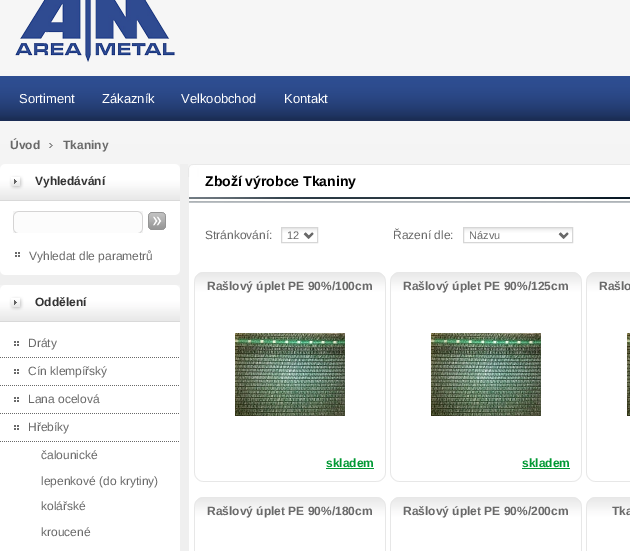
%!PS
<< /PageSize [630 551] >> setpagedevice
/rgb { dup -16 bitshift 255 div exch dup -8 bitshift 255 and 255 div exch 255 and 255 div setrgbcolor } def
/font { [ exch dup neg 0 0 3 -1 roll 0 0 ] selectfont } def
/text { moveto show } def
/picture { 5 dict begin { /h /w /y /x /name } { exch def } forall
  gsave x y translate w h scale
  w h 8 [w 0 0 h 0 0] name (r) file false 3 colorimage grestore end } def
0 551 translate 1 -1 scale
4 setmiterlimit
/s1 { /LiberationSans-Regular 13 font 16#FFFFFF rgb } def
/s2 { /LiberationSans-Bold 12 font 16#696969 rgb } def
/s3 { /LiberationSans-Bold 12 font 16#333333 rgb } def
/s4 { /LiberationSans-Regular 12 font 16#696969 rgb } def
/s5 { /LiberationSans-Regular 11 font 16#696969 rgb } def
/s6 { /LiberationSans-Bold 12 font 16#009933 rgb } def
/s7 { /LiberationSans-Bold 14 font 16#000000 rgb } def
16#EFEFEF rgb
0 0 630 551 rectfill
(pic1.raw) 0 0 630 164 picture
(pic2.raw) 15 0 160 62 picture
s1
(Sortiment) 19 103 text
(Zákazník) 102 103 text
(Velkoobchod) 181 103 text
(Kontakt) 284 103 text
s2
(Úvod) 10 149 text
(pic3.raw) 49 143 4 5 picture
(Tkaniny) 63 149 text
(pic4.raw) 0 164 180 37 picture
s3
(Vyhledávání) 35 185 text
16#FFFFFF rgb
0 201 180 69 rectfill
(pic5.raw) 13 211 130 22 picture
(pic6.raw) 148 212 18 18 picture
(pic7.raw) 15 252 5 5 picture
s4
(Vyhledat dle parametrů) 29 260 text
(pic8.raw) 0 270 180 5 picture
(pic4.raw) 0 285 180 37 picture
s3
(Oddělení) 35 306 text
16#FFFFFF rgb
0 322 180 229 rectfill
(pic9.raw) 0 357 179 1 picture
(pic7.raw) 14 341 5 5 picture
s4
(Dráty) 28 347 text
(pic9.raw) 0 385 179 1 picture
(pic7.raw) 14 369 5 5 picture
(Cín klempířský) 28 375 text
(pic9.raw) 0 413 179 1 picture
(pic7.raw) 14 397 5 5 picture
(Lana ocelová) 28 403 text
(pic9.raw) 0 441 179 1 picture
(pic7.raw) 14 425 5 5 picture
(Hřebíky) 28 431 text
(čalounické) 41 459 text
(lepenkové \(do krytiny\)) 41 485 text
(kolářské) 41 510 text
(kroucené) 41 536 text
16#FFFFFF rgb
189 177 441 374 rectfill
(pic10.raw) 188 164 442 13 picture
s4
(Stránkování:) 205 239 text
(pic11.raw) 282 228 35 11 picture
16#D6D6D6 rgb
281.5 227.5 36 15 rectstroke
16#696969 rgb
2 setlinewidth
304.5 233.5 moveto 308.5 237.5 lineto 312.5 233.5 lineto stroke
s5
(12) 287 239 text
s4
(Řazení dle:) 393 239 text
(pic12.raw) 464 228 108 11 picture
16#D6D6D6 rgb
1 setlinewidth
463.5 227.5 109 15 rectstroke
16#696969 rgb
2 setlinewidth
559.5 233.5 moveto 563.5 237.5 lineto 567.5 233.5 lineto stroke
s5
(Názvu) 469 239 text
(pic13.raw) 194 272 192 210 picture
s2
(Rašlový úplet PE 90%/100cm) 207 290 text
(pic14.raw) 235 333 110 83 picture
s6
(skladem) 326 467 text
326 468 48 1 rectfill
(pic13.raw) 390 272 192 210 picture
s2
(Rašlový úplet PE 90%/125cm) 403 290 text
(pic14.raw) 431 333 110 83 picture
s6
(skladem) 522 467 text
522 468 48 1 rectfill
(pic15.raw) 586 272 44 210 picture
s2
(Rašlo) 599 290 text
(pic16.raw) 627 333 3 83 picture
(pic17.raw) 194 497 192 54 picture
(Rašlový úplet PE 90%/180cm) 207 515 text
(pic17.raw) 390 497 192 54 picture
(Rašlový úplet PE 90%/200cm) 403 515 text
(pic18.raw) 586 497 44 54 picture
(Tka) 612 515 text
(pic19.raw) 189 197 441 6 picture
s7
(Zboží výrobce Tkaniny) 205 186 text
showpage
